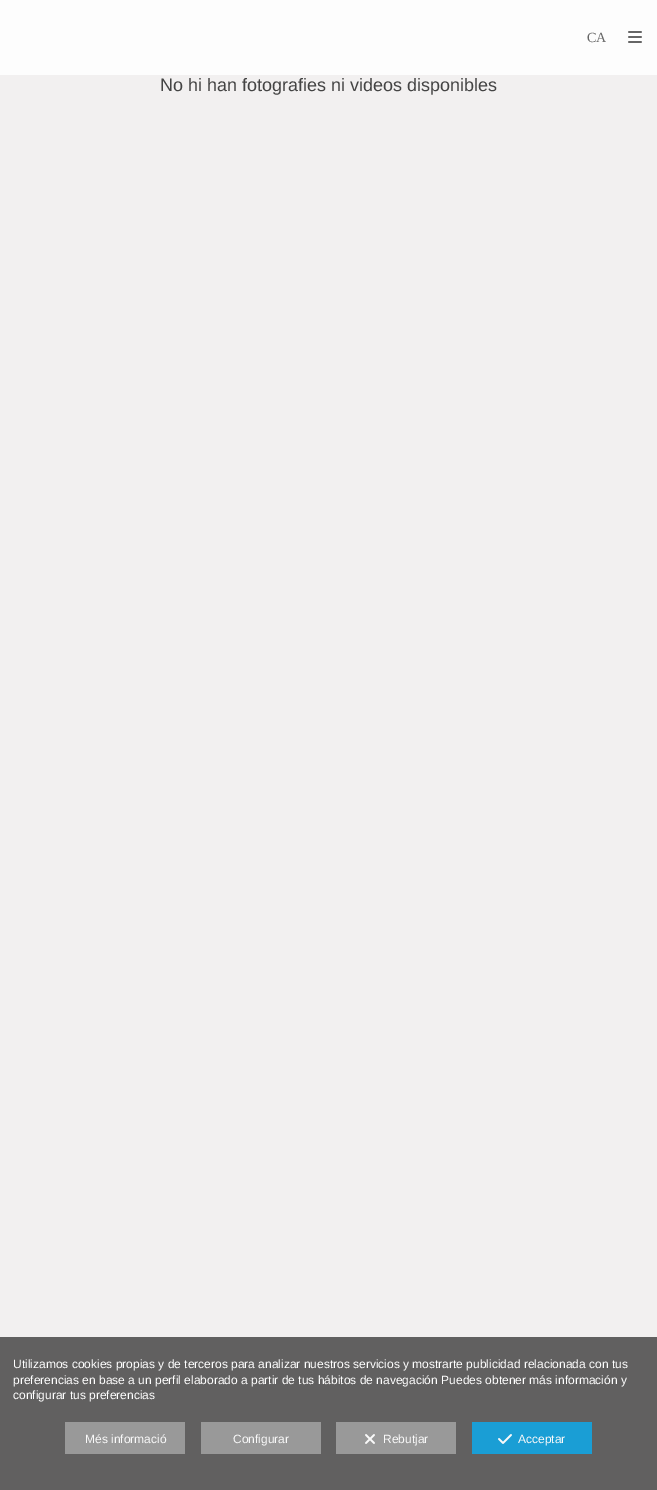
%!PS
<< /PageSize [657 1490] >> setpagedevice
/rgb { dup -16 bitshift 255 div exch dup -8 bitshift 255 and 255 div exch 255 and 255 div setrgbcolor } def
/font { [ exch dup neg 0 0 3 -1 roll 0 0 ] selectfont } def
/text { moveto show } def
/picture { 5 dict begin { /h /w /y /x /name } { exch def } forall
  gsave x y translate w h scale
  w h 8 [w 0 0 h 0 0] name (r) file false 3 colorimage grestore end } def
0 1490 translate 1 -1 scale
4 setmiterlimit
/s1 { /LiberationSerif-Regular 14 font 16#666666 rgb } def
/s2 { /LiberationSans-Regular 18 font 16#444444 rgb } def
/s3 { /LiberationSans-Regular 12 font 16#FFFFFF rgb } def
/s4 { /LiberationSans-Regular 12 font 16#F9F9F9 rgb } def
16#F2F0F0 rgb
0 0 657 1490 rectfill
16#FDFDFD rgb
0 0 657 75 rectfill
s1
(CA) 587 42 text
(pic1.raw) 628 31 14 12 picture
s2
(No hi han fotografies ni videos disponibles) 160 91 text
16#616060 rgb
0 1337 657 153 rectfill
s3
(Utilizamos cookies propias y de terceros para analizar nuestros servicios y mostrarte publicidad relacionada con tus) 13 1368 text
(preferencias en base a un perfil elaborado a partir de tus hábitos de navegación Puedes obtener más información y) 13 1384 text
(configurar tus preferencias) 13 1399 text
16#999999 rgb
65 1422 120 32 rectfill
s4
(Més informació) 85 1443 text
16#999999 rgb
201 1422 120 32 rectfill
s4
(Configurar) 233 1443 text
16#999999 rgb
336 1422 120 32 rectfill
(pic2.raw) 365 1434 10 10 picture
s4
(Rebutjar) 383 1443 text
16#1A9ED5 rgb
472 1422 120 32 rectfill
(pic3.raw) 498 1434 14 10 picture
s4
(Acceptar) 518 1443 text
showpage
